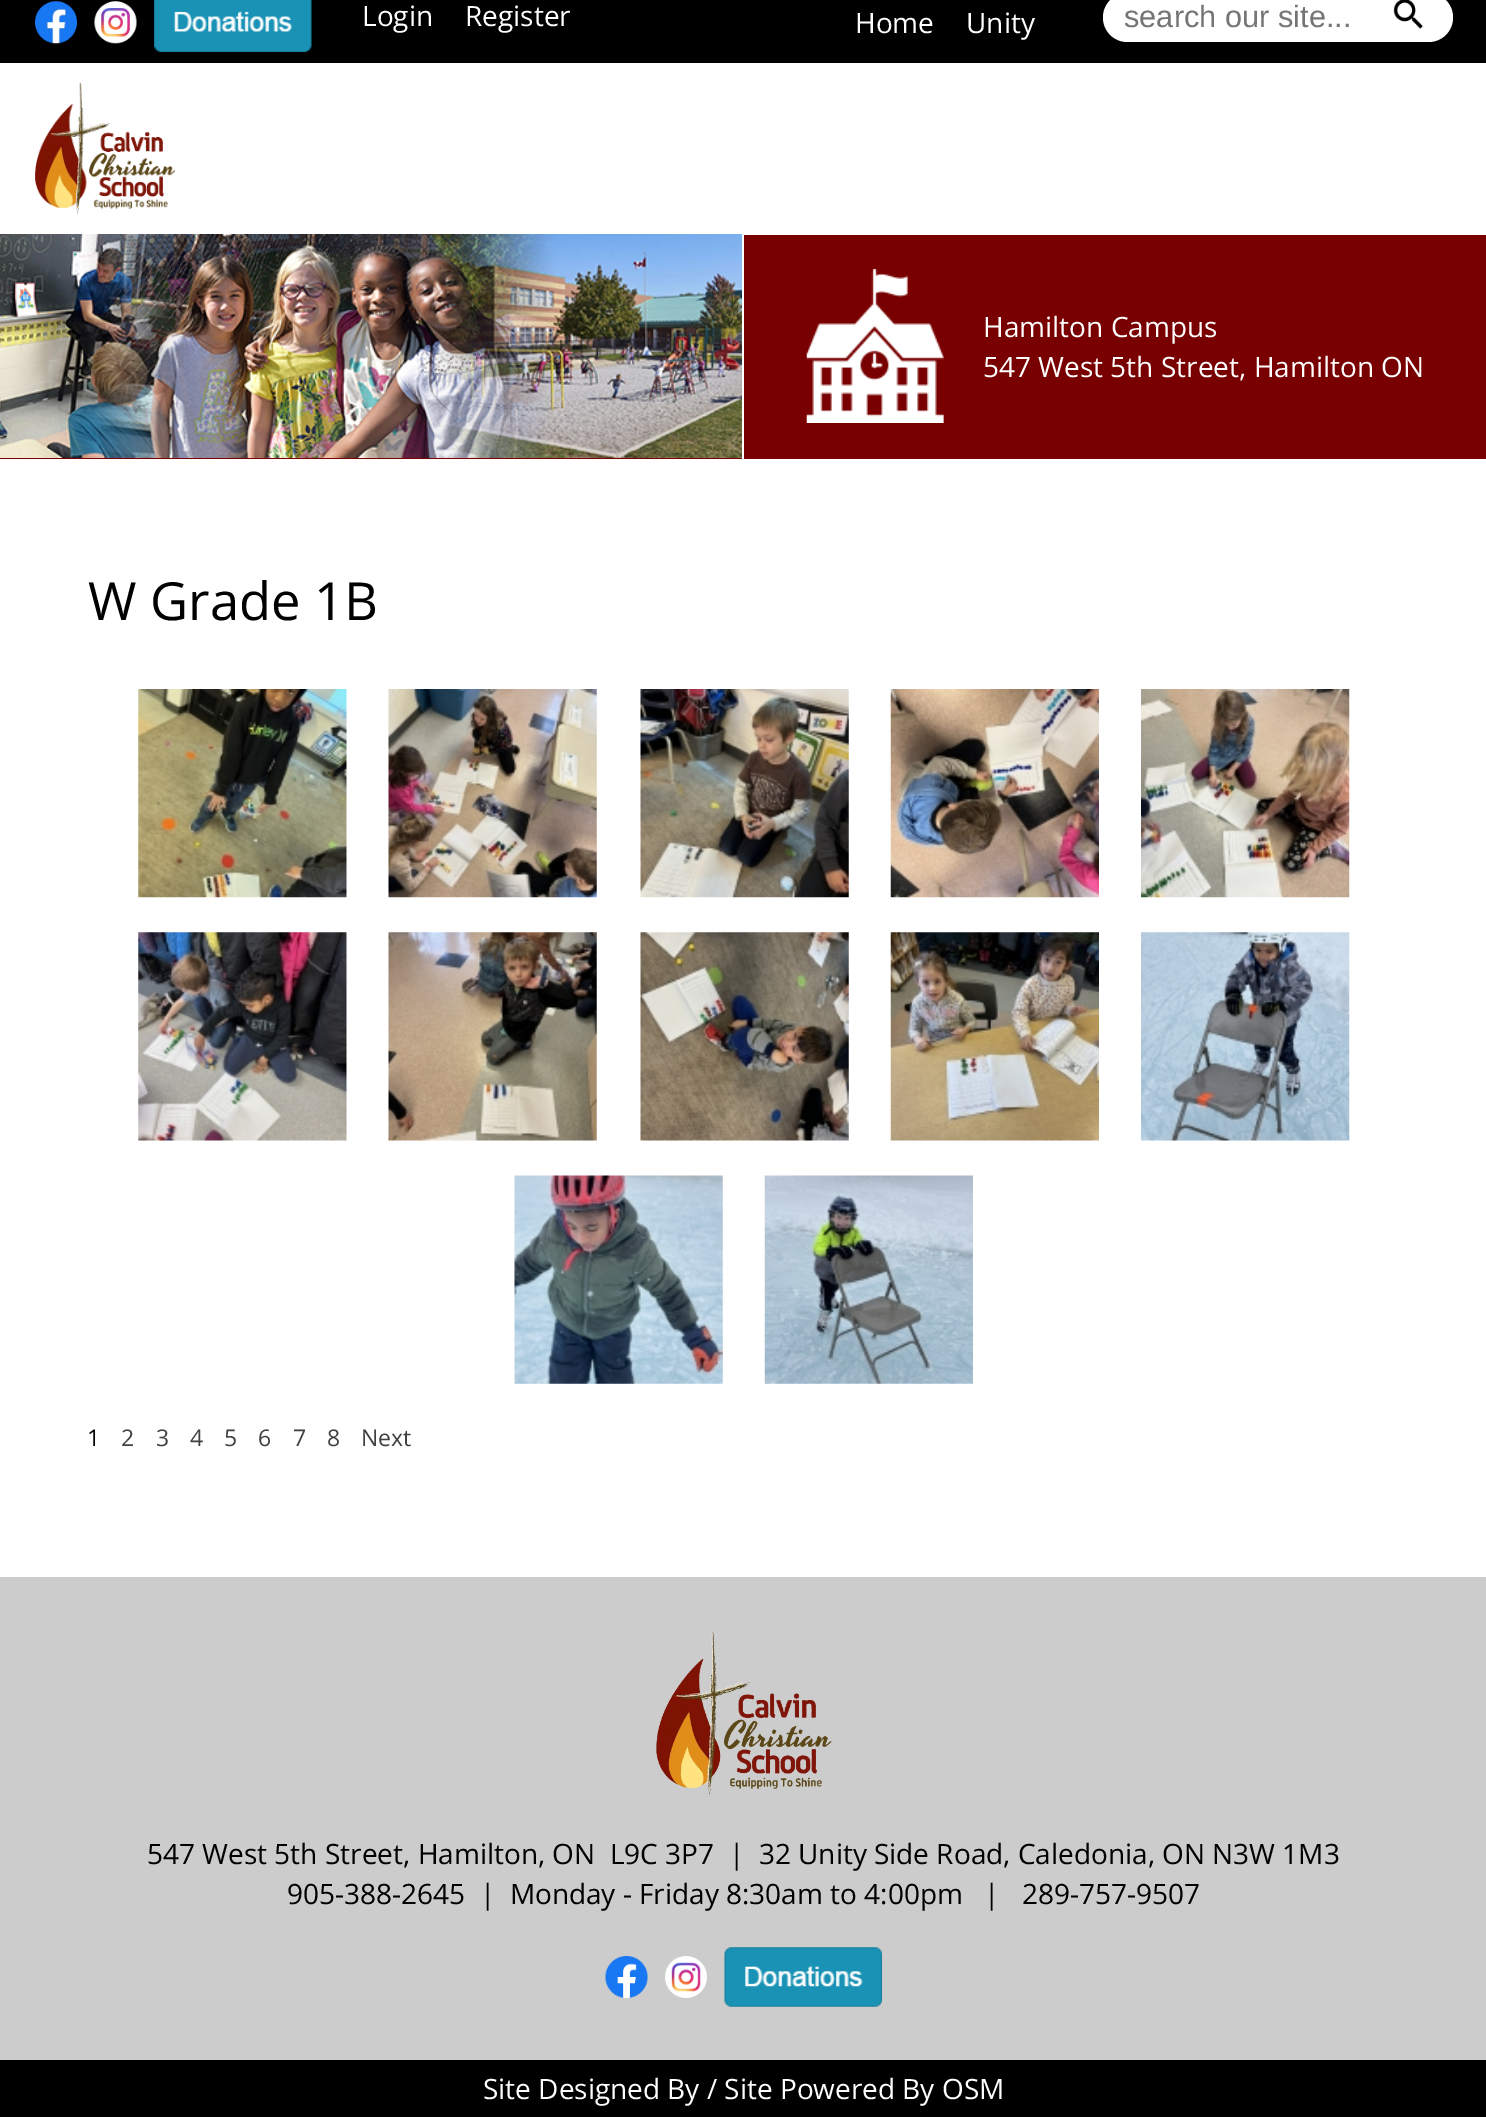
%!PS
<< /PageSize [1486 2117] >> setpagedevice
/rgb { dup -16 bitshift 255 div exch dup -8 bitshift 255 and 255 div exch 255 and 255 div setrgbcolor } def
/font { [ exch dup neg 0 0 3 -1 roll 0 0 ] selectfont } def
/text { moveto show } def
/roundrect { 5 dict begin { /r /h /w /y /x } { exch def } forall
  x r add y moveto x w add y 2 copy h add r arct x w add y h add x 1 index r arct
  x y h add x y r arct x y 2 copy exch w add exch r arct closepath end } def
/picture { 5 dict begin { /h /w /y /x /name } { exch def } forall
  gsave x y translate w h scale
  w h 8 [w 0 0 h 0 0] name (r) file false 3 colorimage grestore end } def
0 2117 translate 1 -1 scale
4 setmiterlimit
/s1 { /OpenSans-Regular 28 font 16#FFFFFF rgb } def
/s2 { /LiberationSans-Regular 30.75 font 16#757575 rgb } def
/s3 { /OpenSans-Regular 52.5 font 16#000000 rgb } def
/s4 { /OpenSans-Regular 23 font 16#000000 rgb } def
/s5 { /OpenSans-Regular 23 font 16#414040 rgb } def
/s6 { /OpenSans-Regular 28 font 16#000000 rgb } def
16#FFFFFF rgb
0 0 1486 2117 rectfill
16#000000 rgb
0 0 1486 63 rectfill
(pic1.raw) 35 1 42 43 picture
(pic2.raw) 94 1 43 43 picture
(pic3.raw) 154 0 158 52 picture
s1
(Login) 362 26 text
(Register) 465 26 text
(Home) 855 33 text
(Unity) 966 33 text
1103 -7 350 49 24.5 roundrect fill
s2
(search our site...) 1124 27 text
(pic4.raw) 1393 0 30 29 picture
(pic5.raw) 35 82 140 134 picture
16#790000 rgb
0 235 1486 224 rectfill
16#FFFFFF rgb
742 235 2 224 rectfill
(pic6.raw) 0 234 742 224 picture
(pic7.raw) 806 269 138 154 picture
s1
(Hamilton Campus) 983 337 text
(547 West 5th Street, Hamilton ON) 983 377 text
s3
(W Grade 1B) 88 620 text
(pic8.raw) 138 689 209 209 picture
(pic9.raw) 388 689 209 209 picture
(pic10.raw) 640 689 209 209 picture
(pic11.raw) 890 689 209 209 picture
(pic12.raw) 1141 689 209 209 picture
(pic13.raw) 138 932 209 209 picture
(pic14.raw) 388 932 209 209 picture
(pic15.raw) 640 932 209 209 picture
(pic16.raw) 890 932 209 209 picture
(pic17.raw) 1141 932 209 209 picture
(pic18.raw) 514 1175 209 209 picture
(pic19.raw) 764 1175 209 209 picture
s4
(1) 87 1446 text
s5
(2) 121 1446 text
(3) 156 1446 text
(4) 190 1446 text
(5) 224 1446 text
(6) 258 1446 text
(7) 293 1446 text
(8) 327 1446 text
(Next) 361 1446 text
16#CCCCCC rgb
0 1577 1486 483 rectfill
(pic20.raw) 656 1632 176 164 picture
s6
(547 West 5th Street, Hamilton, ON  L9C 3P7  |  32 Unity Side Road, Caledonia, ON N3W 1M3) 147 1864 text
(905-388-2645  |  Monday - Friday 8:30am to 4:00pm   |   289-757-9507) 287 1904 text
(pic21.raw) 605 1956 43 42 picture
(pic22.raw) 665 1956 42 42 picture
(pic23.raw) 724 1947 158 60 picture
0 2060 1486 57 rectfill
s1
(Site Designed By / Site Powered By OSM) 483 2099 text
showpage
